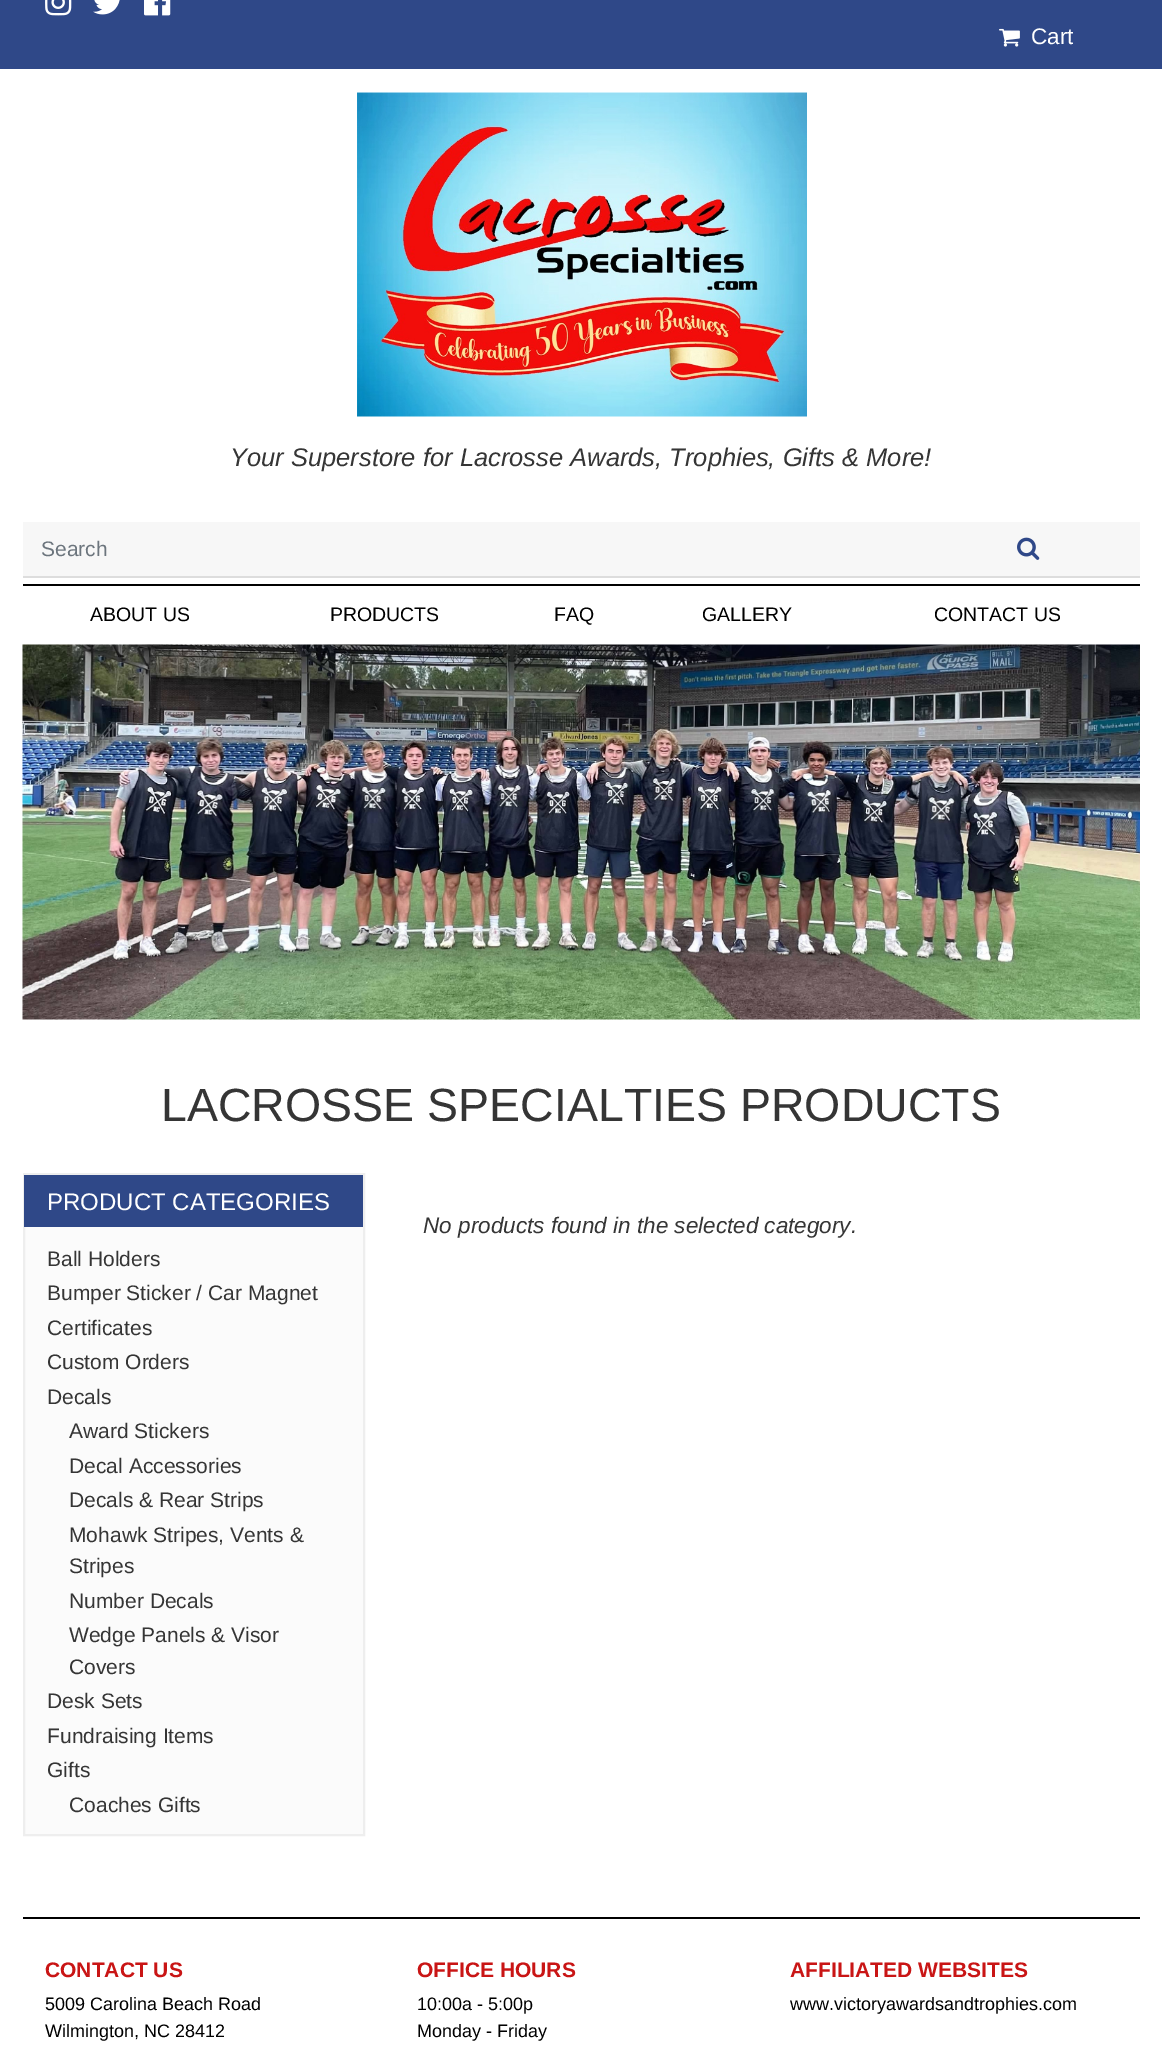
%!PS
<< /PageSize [1162 2051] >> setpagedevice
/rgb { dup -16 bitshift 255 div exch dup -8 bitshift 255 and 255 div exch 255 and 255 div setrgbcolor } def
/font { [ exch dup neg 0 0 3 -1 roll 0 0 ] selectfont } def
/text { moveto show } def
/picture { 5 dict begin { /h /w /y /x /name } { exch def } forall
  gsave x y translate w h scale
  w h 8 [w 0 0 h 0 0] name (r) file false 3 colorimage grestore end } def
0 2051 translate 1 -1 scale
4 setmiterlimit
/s1 { /LiberationSans-Regular 22.5 font 16#FFFFFF rgb } def
/s2 { /LiberationSans-Italic 25.5 font 16#353535 rgb } def
/s3 { /LiberationSans-Regular 21 font 16#6C757D rgb } def
/s4 { /LiberationSans-Regular 19.5 font 16#000000 rgb } def
/s5 { /LiberationSans-Regular 46.5 font 16#353535 rgb } def
/s6 { /LiberationSans-Regular 24 font 16#FFFFFF rgb } def
/s7 { /LiberationSans-Regular 21 font 16#353535 rgb } def
/s8 { /LiberationSans-Italic 22.5 font 16#353535 rgb } def
/s9 { /LiberationSans-Bold 21 font 16#C91515 rgb } def
/s10 { /LiberationSans-Regular 18 font 16#000000 rgb } def
16#FFFFFF rgb
0 0 1162 2051 rectfill
16#2F4888 rgb
0 0 1162 69 rectfill
(pic1.raw) 45 0 27 16 picture
(pic2.raw) 93 0 27 15 picture
(pic3.raw) 144 0 27 16 picture
(pic4.raw) 999 28 21 19 picture
s1
(Cart) 1031 44 text
(pic5.raw) 357 92 450 325 picture
s2
(Your Superstore for Lacrosse Awards, Trophies, Gifts & More!) 230 466 text
16#F7F7F7 rgb
23 522 1117 54 rectfill
16#DDDDDD rgb
23 576 1117 2 rectfill
s3
(Search) 41 556 text
(pic6.raw) 1017 537 23 23 picture
16#000000 rgb
23 584 1117 2 rectfill
s4
(ABOUT US) 90 621 text
(PRODUCTS) 330 621 text
(FAQ) 554 621 text
(GALLERY) 702 621 text
(CONTACT US) 934 621 text
(pic7.raw) 22 644 1118 376 picture
s5
(LACROSSE SPECIALTIES PRODUCTS) 161 1121 text
16#FBFBFB rgb
25 1227 338 607 rectfill
16#EEEEEE rgb
2 setlinewidth
24 1174 340 661 rectstroke
16#2F4888 rgb
24 1175 339 52 rectfill
s6
(PRODUCT CATEGORIES) 47 1210 text
s7
(Ball Holders) 47 1266 text
(Bumper Sticker / Car Magnet) 47 1300 text
(Certificates) 47 1335 text
(Custom Orders) 47 1369 text
(Decals) 47 1404 text
(Award Stickers) 69 1438 text
(Decal Accessories) 69 1473 text
(Decals & Rear Strips) 69 1507 text
(Mohawk Stripes, Vents &) 69 1542 text
(Stripes) 69 1573 text
(Number Decals) 69 1608 text
(Wedge Panels & Visor) 69 1642 text
(Covers) 69 1674 text
(Desk Sets) 47 1708 text
(Fundraising Items) 47 1743 text
(Gifts) 47 1777 text
(Coaches Gifts) 69 1812 text
s8
(No products found in the selected category.) 423 1233 text
16#000000 rgb
23 1917 1117 2 rectfill
s9
(CONTACT US) 45 1977 text
s10
(5009 Carolina Beach Road) 45 2010 text
(Wilmington, NC 28412) 45 2037 text
s9
(OFFICE HOURS) 417 1977 text
s10
(10:00a - 5:00p) 417 2010 text
(Monday - Friday) 417 2037 text
s9
(AFFILIATED WEBSITES) 790 1977 text
s10
(www.victoryawardsandtrophies.com) 790 2010 text
showpage
